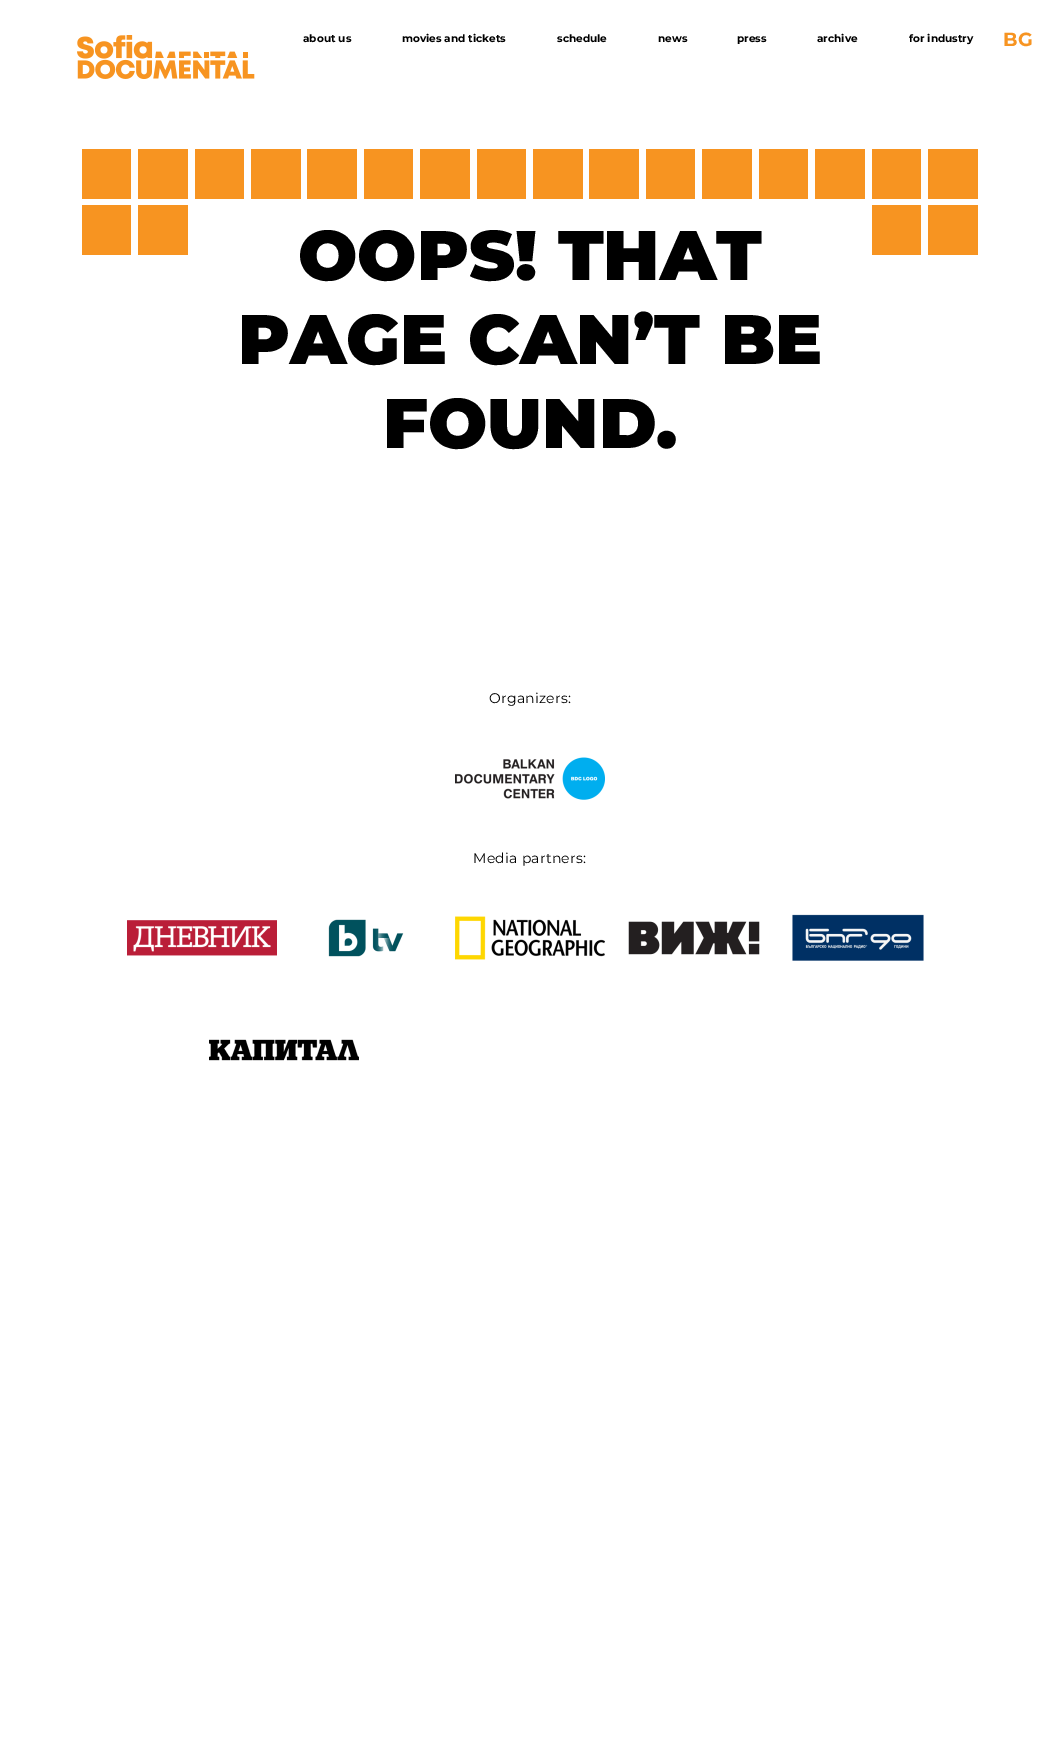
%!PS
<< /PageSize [1060 1761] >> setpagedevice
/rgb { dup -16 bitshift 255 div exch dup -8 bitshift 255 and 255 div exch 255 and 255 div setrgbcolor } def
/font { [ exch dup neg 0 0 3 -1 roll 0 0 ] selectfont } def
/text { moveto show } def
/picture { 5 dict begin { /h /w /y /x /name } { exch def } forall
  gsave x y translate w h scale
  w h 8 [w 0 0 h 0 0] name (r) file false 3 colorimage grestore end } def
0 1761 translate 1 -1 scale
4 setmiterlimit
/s1 { /Montserrat-Bold 10.5 font 16#000000 rgb } def
/s2 { /Montserrat-Bold 19 font 16#F79421 rgb } def
/s3 { /Montserrat-Black 70 font 16#000000 rgb } def
16#FFFFFF rgb
0 0 1060 1761 rectfill
(pic1.raw) 77 35 178 44 picture
s1
(about us) 303 42 text
(movies and tickets) 402 42 text
(schedule) 557 42 text
(news) 658 42 text
(press) 737 42 text
(archive) 817 42 text
(for industry) 909 42 text
s2
(BG) 1003 46 text
(pic2.raw) 82 149 896 106 picture
s3
(OOPS! THAT) 298 280 text
(PAGE CAN’T BE) 238 364 text
(FOUND.) 383 448 text
/Montserrat-Regular 14 font
489 703 moveto 0.25 0 (Organizers:) ashow
(pic3.raw) 455 757 150 43 picture
473 863 moveto 0.25 0 (Media partners:) ashow
(pic4.raw) 127 920 150 36 picture
(pic5.raw) 328 919 76 38 picture
(pic6.raw) 455 916 150 44 picture
(pic7.raw) 628 921 132 34 picture
(pic8.raw) 792 914 132 47 picture
(pic9.raw) 209 1039 150 22 picture
showpage
